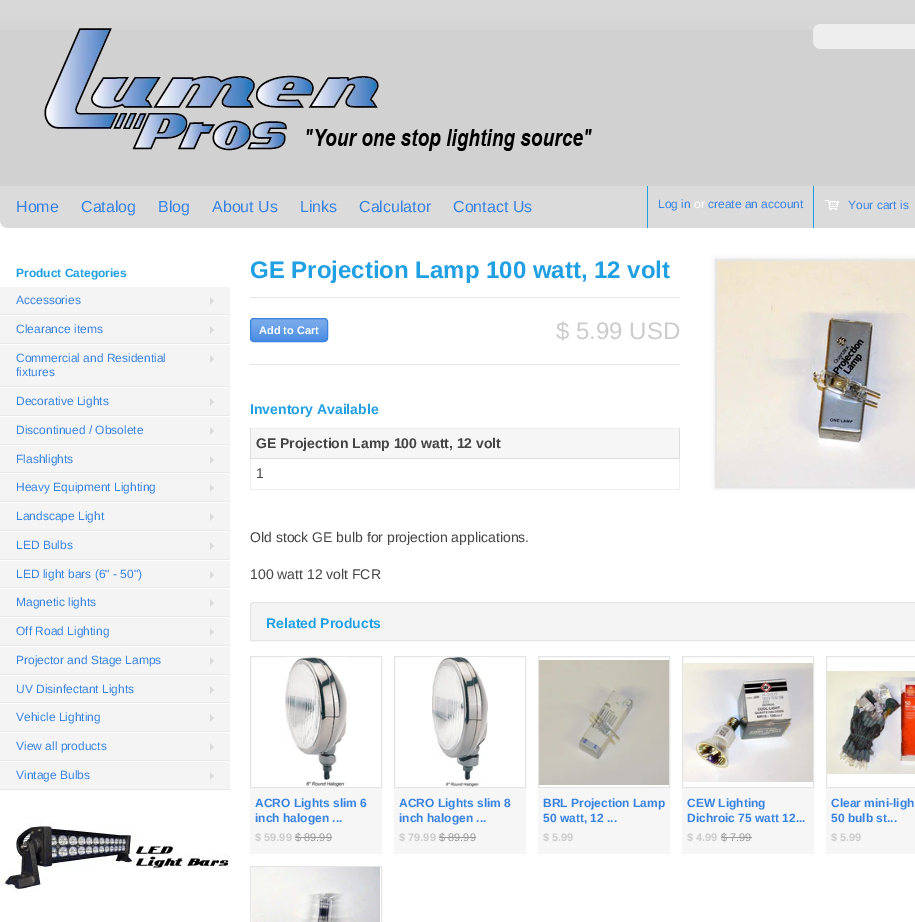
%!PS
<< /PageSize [915 922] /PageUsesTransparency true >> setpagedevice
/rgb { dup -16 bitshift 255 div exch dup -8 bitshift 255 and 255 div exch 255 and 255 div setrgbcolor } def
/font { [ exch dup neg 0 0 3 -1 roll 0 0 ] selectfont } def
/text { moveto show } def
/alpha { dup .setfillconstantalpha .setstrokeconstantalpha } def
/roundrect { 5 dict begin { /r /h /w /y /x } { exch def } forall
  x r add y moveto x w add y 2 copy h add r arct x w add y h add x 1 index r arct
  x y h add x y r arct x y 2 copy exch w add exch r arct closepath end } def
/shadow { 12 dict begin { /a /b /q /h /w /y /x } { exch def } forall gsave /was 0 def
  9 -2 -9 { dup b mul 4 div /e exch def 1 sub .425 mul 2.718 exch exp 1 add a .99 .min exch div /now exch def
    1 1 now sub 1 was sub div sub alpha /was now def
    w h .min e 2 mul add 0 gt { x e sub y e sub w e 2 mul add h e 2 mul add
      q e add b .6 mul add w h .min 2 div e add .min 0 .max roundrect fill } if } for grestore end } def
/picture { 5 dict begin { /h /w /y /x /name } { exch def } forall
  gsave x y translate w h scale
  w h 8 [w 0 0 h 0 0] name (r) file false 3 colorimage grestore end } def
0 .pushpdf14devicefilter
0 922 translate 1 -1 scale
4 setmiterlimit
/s1 { /LiberationSans-Regular 16 font 16#3A82E0 rgb } def
/s2 { /LiberationSans-Regular 12 font 16#3A82E0 rgb } def
/s3 { /LiberationSans-Regular 12 font 16#FFFFFF rgb } def
/s4 { /LiberationSans-Bold 12 font 16#209FE3 rgb } def
/s5 { /LiberationSans-Bold 24 font 16#209FE3 rgb } def
/s6 { /LiberationSans-Bold 11 font 16#FFFFFF rgb } def
/s7 { /LiberationSans-Regular 24 font 16#CCCCCC rgb } def
/s8 { /LiberationSans-Bold 14 font 16#209FE3 rgb } def
/s9 { /LiberationSans-Bold 14 font 16#444444 rgb } def
/s10 { /LiberationSans-Regular 14 font 16#444444 rgb } def
/s11 { /LiberationSans-Bold 12 font 16#3A82E0 rgb } def
/s12 { /LiberationSans-Bold 11 font 16#CCCCCC rgb } def
/s13 { /LiberationSans-Regular 11 font 16#999999 rgb } def
16#D1D1D1 rgb
0 0 915 922 rectfill
(pic1.raw) 0 0 915 30 picture
(pic2.raw) 44 28 548 123 picture
16#EEEEEE rgb
821 24 moveto 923 24 lineto 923 49 lineto 821 49 lineto 816.5 49 813 45.5 813 41 curveto 813 32 lineto 813 27.5 816.5 24 821 24 curveto closepath fill
16#FFFFFF rgb
0 220 915 702 rectfill
16#DBDBDB rgb
0 186 moveto 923 186 lineto 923 220 lineto 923 224.5 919.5 228 915 228 curveto 8 228 lineto 3.5 228 0 224.5 0 220 curveto closepath fill
s1
(Home) 16 212 text
(Catalog) 81 212 text
(Blog) 158 212 text
(About Us) 212 212 text
(Links) 300 212 text
(Calculator) 359 212 text
(Contact Us) 453 212 text
16#209FE3 rgb
647 186 1 42 rectfill
s2
(Log in) 658 208 text
s3
(or) 694 208 text
s2
(create an account) 708 208 text
16#209FE3 rgb
813 186 1 42 rectfill
(pic3.raw) 825 200 14 10 picture
s2
(Your cart is) 848 209 text
s4
(Product Categories) 16 277 text
16#F4F4F4 rgb
0 287 230 27 rectfill
16#E8E8E8 rgb
0 314 230 1 rectfill
s2
(Accessories) 16 304 text
16#DBDBDB rgb
210 305 moveto 210 297 lineto 214 301 lineto closepath fill
16#F4F4F4 rgb
0 316 230 27 rectfill
16#E8E8E8 rgb
0 343 230 1 rectfill
s2
(Clearance items) 16 333 text
16#DBDBDB rgb
210 334 moveto 210 326 lineto 214 330 lineto closepath fill
16#F4F4F4 rgb
0 345 230 41 rectfill
16#E8E8E8 rgb
0 386 230 1 rectfill
s2
(Commercial and Residential) 16 362 text
16#DBDBDB rgb
210 363 moveto 210 355 lineto 214 359 lineto closepath fill
s2
(fixtures) 16 376 text
16#F4F4F4 rgb
0 388 230 27 rectfill
16#E8E8E8 rgb
0 415 230 1 rectfill
s2
(Decorative Lights) 16 405 text
16#DBDBDB rgb
210 406 moveto 210 398 lineto 214 402 lineto closepath fill
16#F4F4F4 rgb
0 417 230 27 rectfill
16#E8E8E8 rgb
0 444 230 1 rectfill
s2
(Discontinued / Obsolete) 16 434 text
16#DBDBDB rgb
210 435 moveto 210 427 lineto 214 431 lineto closepath fill
16#F4F4F4 rgb
0 446 230 26 rectfill
16#E8E8E8 rgb
0 472 230 1 rectfill
s2
(Flashlights) 16 463 text
16#DBDBDB rgb
210 464 moveto 210 456 lineto 214 460 lineto closepath fill
16#F4F4F4 rgb
0 474 230 27 rectfill
16#E8E8E8 rgb
0 501 230 1 rectfill
s2
(Heavy Equipment Lighting) 16 491 text
16#DBDBDB rgb
210 492 moveto 210 484 lineto 214 488 lineto closepath fill
16#F4F4F4 rgb
0 503 230 27 rectfill
16#E8E8E8 rgb
0 530 230 1 rectfill
s2
(Landscape Light) 16 520 text
16#DBDBDB rgb
210 521 moveto 210 513 lineto 214 517 lineto closepath fill
16#F4F4F4 rgb
0 532 230 27 rectfill
16#E8E8E8 rgb
0 559 230 1 rectfill
s2
(LED Bulbs) 16 549 text
16#DBDBDB rgb
210 550 moveto 210 542 lineto 214 546 lineto closepath fill
16#F4F4F4 rgb
0 561 230 26 rectfill
16#E8E8E8 rgb
0 587 230 1 rectfill
s2
(LED light bars \(6" - 50"\)) 16 578 text
16#DBDBDB rgb
210 579 moveto 210 571 lineto 214 575 lineto closepath fill
16#F4F4F4 rgb
0 589 230 27 rectfill
16#E8E8E8 rgb
0 616 230 1 rectfill
s2
(Magnetic lights) 16 606 text
16#DBDBDB rgb
210 607 moveto 210 599 lineto 214 603 lineto closepath fill
16#F4F4F4 rgb
0 618 230 27 rectfill
16#E8E8E8 rgb
0 645 230 1 rectfill
s2
(Off Road Lighting) 16 635 text
16#DBDBDB rgb
210 636 moveto 210 628 lineto 214 632 lineto closepath fill
16#F4F4F4 rgb
0 647 230 27 rectfill
16#E8E8E8 rgb
0 674 230 1 rectfill
s2
(Projector and Stage Lamps) 16 664 text
16#DBDBDB rgb
210 665 moveto 210 657 lineto 214 661 lineto closepath fill
16#F4F4F4 rgb
0 676 230 26 rectfill
16#E8E8E8 rgb
0 702 230 1 rectfill
s2
(UV Disinfectant Lights) 16 693 text
16#DBDBDB rgb
210 694 moveto 210 686 lineto 214 690 lineto closepath fill
16#F4F4F4 rgb
0 704 230 27 rectfill
16#E8E8E8 rgb
0 731 230 1 rectfill
s2
(Vehicle Lighting) 16 721 text
16#DBDBDB rgb
210 722 moveto 210 714 lineto 214 718 lineto closepath fill
16#F4F4F4 rgb
0 733 230 27 rectfill
16#E8E8E8 rgb
0 760 230 1 rectfill
s2
(View all products) 16 750 text
16#DBDBDB rgb
210 751 moveto 210 743 lineto 214 747 lineto closepath fill
16#F4F4F4 rgb
0 762 230 27 rectfill
16#E8E8E8 rgb
0 789 230 1 rectfill
s2
(Vintage Bulbs) 16 779 text
16#DBDBDB rgb
210 780 moveto 210 772 lineto 214 776 lineto closepath fill
(pic4.raw) 0 822 230 71 picture
16#E6E6E6 rgb
250 297 430 1 rectfill
s5
(GE Projection Lamp 100 watt, 12 volt) 250 278 text
16#E6E6E6 rgb
250 364 430 1 rectfill
16#3A82E0 rgb
250 318 78 24 4 roundrect fill
(pic5.raw) 250 319 78 23 picture
250.5 318.5 77 23 3.5 roundrect stroke
s6
(Add to Cart) 259 334 text
s7
($ 5.99 USD) 556 339 text
s8
(Inventory Available) 250 414 text
16#F6F6F6 rgb
251 429 428 29 rectfill
16#EEEEEE rgb
250 428 430 1 rectfill
679 458 1 32 rectfill
16#DDDDDD rgb
679 428 1 31 rectfill
16#EEEEEE rgb
250 489 430 1 rectfill
250 458 1 32 rectfill
16#DDDDDD rgb
250 458 430 1 rectfill
250 428 1 31 rectfill
s9
(GE Projection Lamp 100 watt, 12 volt) 256 448 text
s10
(1) 256 478 text
(Old stock GE bulb for projection applications.) 250 542 text
(100 watt 12 volt FCR) 250 579 text
16#000000 rgb
715 259 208 229 0 2.5 0.1 shadow
16#E6E6E6 rgb
2 setlinewidth
716 260 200 227 rectstroke
(pic6.raw) 717 261 198 225 picture
16#F4F4F4 rgb
254 602.5 moveto 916 602.5 lineto 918 602.5 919.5 604 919.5 606 curveto 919.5 640.5 lineto 250.5 640.5 lineto 250.5 606 lineto 250.5 604 252 602.5 254 602.5 curveto closepath gsave fill grestore
16#E4E4E4 rgb
1 setlinewidth
stroke
s8
(Related Products) 266 628 text
16#E4E4E4 rgb
250.5 656.5 131 131 rectstroke
(pic7.raw) 285 657 62 130 picture
16#F6F6F6 rgb
250 788 132 66 rectfill
s11
(ACRO Lights slim 6) 255 807 text
(inch halogen ...) 255 822 text
s12
($ 59.99) 255 841 text
s13
($ 89.99) 295 841 text
295 837 37 1 rectfill
16#E4E4E4 rgb
394.5 656.5 131 131 rectstroke
(pic8.raw) 432 657 56 130 picture
16#F6F6F6 rgb
394 788 132 66 rectfill
s11
(ACRO Lights slim 8) 399 807 text
(inch halogen ...) 399 822 text
s12
($ 79.99) 399 841 text
s13
($ 89.99) 439 841 text
439 837 37 1 rectfill
16#E4E4E4 rgb
538.5 656.5 131 131 rectstroke
(pic9.raw) 539 660 130 125 picture
16#F6F6F6 rgb
538 788 132 66 rectfill
s11
(BRL Projection Lamp) 543 807 text
(50 watt, 12 ...) 543 822 text
s12
($ 5.99) 543 841 text
16#E4E4E4 rgb
682.5 656.5 131 131 rectstroke
(pic10.raw) 683 663 130 119 picture
16#F6F6F6 rgb
682 788 132 66 rectfill
s11
(CEW Lighting) 687 807 text
(Dichroic 75 watt 12...) 687 822 text
s12
($ 4.99) 687 841 text
s13
($ 7.99) 721 841 text
721 837 31 1 rectfill
16#E4E4E4 rgb
826.5 656.5 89 131 rectstroke
(pic11.raw) 827 671 88 103 picture
16#F6F6F6 rgb
826 788 89 66 rectfill
s11
(Clear mini-ligh) 831 807 text
(50 bulb st...) 831 822 text
s12
($ 5.99) 831 841 text
16#E4E4E4 rgb
250.5 866.5 131 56 rectstroke
(pic12.raw) 252 867 128 55 picture
.poppdf14devicefilter showpage
